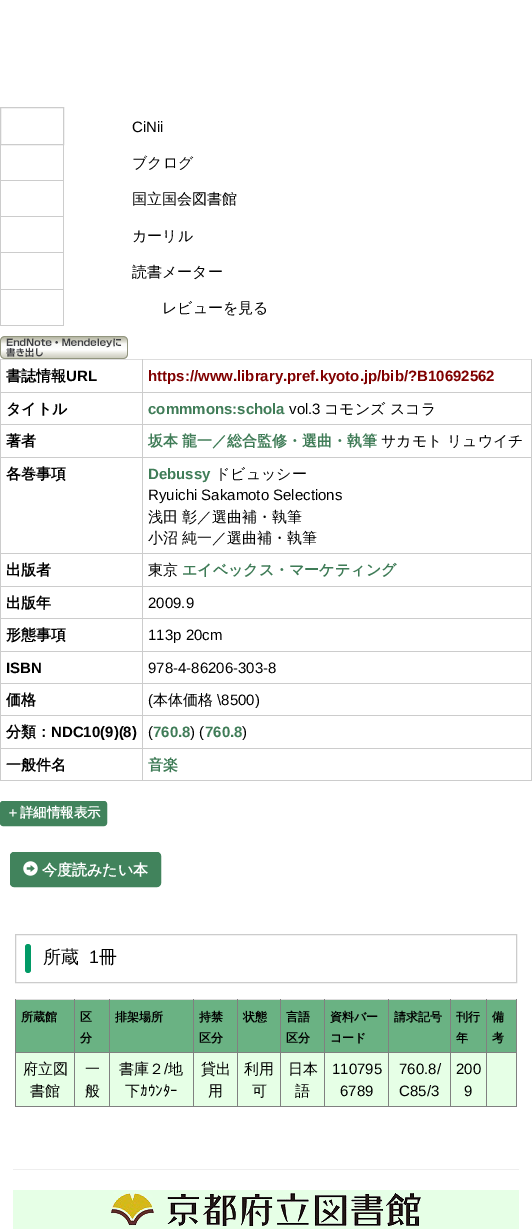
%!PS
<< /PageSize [532 1229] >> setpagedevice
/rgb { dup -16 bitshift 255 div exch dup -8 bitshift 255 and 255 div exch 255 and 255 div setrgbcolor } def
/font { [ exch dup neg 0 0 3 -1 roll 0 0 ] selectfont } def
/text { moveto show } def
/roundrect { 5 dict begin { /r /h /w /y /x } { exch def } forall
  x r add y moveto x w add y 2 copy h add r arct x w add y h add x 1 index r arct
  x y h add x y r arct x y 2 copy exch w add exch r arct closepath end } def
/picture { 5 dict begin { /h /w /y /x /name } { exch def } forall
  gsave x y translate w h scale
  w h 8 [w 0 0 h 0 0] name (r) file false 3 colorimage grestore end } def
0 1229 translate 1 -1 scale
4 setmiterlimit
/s1 { /LiberationSans-Regular 15 font 16#000000 rgb } def
/s2 { /WenQuanYiZenHei-Medium 15 font 16#000000 rgb } def
/s3 { /WenQuanYiZenHei-Bold 15 font 16#000000 rgb } def
/s4 { /LiberationSans-Bold 15 font 16#000000 rgb } def
/s5 { /LiberationSans-Bold 15 font 16#800000 rgb } def
/s6 { /LiberationSans-Bold 15 font 16#3F7C57 rgb } def
/s7 { /WenQuanYiZenHei-Bold 15 font 16#3F7C57 rgb } def
/s8 { /WenQuanYiZenHei-Bold 13.5 font 16#FFFFFF rgb } def
/s9 { /WenQuanYiZenHei-Bold 15 font 16#FFFFFF rgb } def
/s10 { /WenQuanYiZenHei-Medium 18 font 16#000000 rgb } def
/s11 { /LiberationSans-Regular 18 font 16#000000 rgb } def
/s12 { /WenQuanYiZenHei-Bold 12 font 16#000000 rgb } def
/s13 { /IPAPGothic-Regular 15 font 16#000000 rgb } def
16#FFFFFF rgb
0 0 532 1229 rectfill
16#CCCCCC rgb
0.5 107.5 63 37 rectstroke
s1
(CiNii) 132 132 text
16#CCCCCC rgb
63 145 1 181 rectfill
0 180 64 1 rectfill
0 145 1 36 rectfill
s2
(ブクログ) 132 168 text
16#CCCCCC rgb
0 216 64 1 rectfill
0 181 1 36 rectfill
s2
(国立国会図書館) 132 204 text
16#CCCCCC rgb
0 252 64 1 rectfill
0 217 1 36 rectfill
s2
(カーリル) 132 241 text
16#CCCCCC rgb
0 289 64 1 rectfill
0 253 1 37 rectfill
s2
(読書メーター) 132 277 text
16#CCCCCC rgb
0 325 64 1 rectfill
0 290 1 36 rectfill
s2
(レビューを見る) 162 313 text
(pic1.raw) 0 336 128 23 picture
16#CCCCCC rgb
0 780 532 1 rectfill
16#DDDDDD rgb
0 359 532 1 rectfill
16#CCCCCC rgb
531 392 1 389 rectfill
531 359 1 34 rectfill
142 748 1 33 rectfill
142 748 390 1 rectfill
142 715 1 34 rectfill
142 715 390 1 rectfill
142 683 1 33 rectfill
142 683 390 1 rectfill
142 651 1 33 rectfill
142 651 390 1 rectfill
142 618 1 34 rectfill
142 618 390 1 rectfill
142 586 1 33 rectfill
142 586 390 1 rectfill
142 553 1 34 rectfill
142 553 390 1 rectfill
142 457 1 97 rectfill
142 457 390 1 rectfill
142 424 1 34 rectfill
142 424 390 1 rectfill
142 392 1 33 rectfill
142 392 390 1 rectfill
142 359 1 34 rectfill
0 748 1 33 rectfill
0 748 143 1 rectfill
0 715 1 34 rectfill
0 715 143 1 rectfill
0 683 1 33 rectfill
0 683 143 1 rectfill
0 651 1 33 rectfill
0 651 143 1 rectfill
0 618 1 34 rectfill
0 618 143 1 rectfill
0 586 1 33 rectfill
0 586 143 1 rectfill
0 553 1 34 rectfill
0 553 143 1 rectfill
0 457 1 97 rectfill
0 457 143 1 rectfill
0 424 1 34 rectfill
0 424 143 1 rectfill
0 392 1 33 rectfill
0 392 143 1 rectfill
0 359 1 34 rectfill
s3
(書誌情報) 6 381 text
s4
(URL) 66 381 text
s5
(https://www.library.pref.kyoto.jp/bib/?B10692562) 148 381 text
s3
(タイトル) 6 414 text
s6
(commmons:schola) 148 414 text
s1
(vol.3) 289 414 text
s2
(コモンズ スコラ) 324 414 text
s3
(著者) 6 446 text
s7
(坂本 龍一／総合監修・選曲・執筆) 148 446 text
s2
(サカモト リュウイチ) 381 446 text
s3
(各巻事項) 6 479 text
s6
(Debussy) 148 479 text
s2
(ドビュッシー) 215 479 text
s1
(Ryuichi Sakamoto Selections) 148 500 text
s2
(浅田 彰／選曲補・執筆) 148 522 text
(小沼 純一／選曲補・執筆) 148 543 text
s3
(出版者) 6 575 text
s2
(東京) 148 575 text
s7
(エイベックス・マーケティング) 182 575 text
s3
(出版年) 6 608 text
s1
(2009.9) 148 608 text
s3
(形態事項) 6 640 text
s1
(113p 20cm) 148 640 text
s4
(ISBN) 6 673 text
s1
(978-4-86206-303-8) 148 673 text
s3
(価格) 6 705 text
s1
(\() 148 705 text
s2
(本体価格) 153 705 text
s1
(\\8500\)) 217 705 text
s3
(分類：) 6 737 text
s4
(NDC10\(9\)\(8\)) 51 737 text
s1
(\() 148 737 text
s6
(760.8) 153 737 text
s1
(\) \() 190 737 text
s6
(760.8) 205 737 text
s1
(\)) 242 737 text
s3
(一般件名) 6 770 text
s7
(音楽) 148 770 text
16#41835C rgb
0.5 801.5 106 24 2.5 roundrect gsave fill grestore
stroke
s8
(＋詳細情報表示) 6 817 text
16#41835C rgb
10.5 852.5 150 34 3.5 roundrect gsave fill grestore
stroke
(pic2.raw) 23 861 15 15 picture
s9
(今度読みたい本) 42 875 text
16#CCCCCC rgb
15.5 934.5 501 48 rectstroke
16#019A66 rgb
25 944 6 29 3 roundrect fill
s10
(所蔵) 43 963 text
s11
(1) 89 963 text
s10
(冊) 99 963 text
16#808080 rgb
15 1106 502 1 rectfill
16#6AB283 rgb
16 1000 500 52 rectfill
16#DDDDDD rgb
15 999 502 1 rectfill
16#808080 rgb
516 1052 1 55 rectfill
516 999 1 54 rectfill
16#E6FFE6 rgb
16 1053 500 53 rectfill
16#808080 rgb
486 1052 1 55 rectfill
486 1052 31 1 rectfill
486 999 1 54 rectfill
450 1052 1 55 rectfill
450 1052 37 1 rectfill
450 999 1 54 rectfill
388 1052 1 55 rectfill
388 1052 63 1 rectfill
388 999 1 54 rectfill
324 1052 1 55 rectfill
324 1052 65 1 rectfill
324 999 1 54 rectfill
280 1052 1 55 rectfill
280 1052 45 1 rectfill
280 999 1 54 rectfill
237 1052 1 55 rectfill
237 1052 44 1 rectfill
237 999 1 54 rectfill
193 1052 1 55 rectfill
193 1052 45 1 rectfill
193 999 1 54 rectfill
109 1052 1 55 rectfill
109 1052 85 1 rectfill
109 999 1 54 rectfill
74 1052 1 55 rectfill
74 1052 36 1 rectfill
74 999 1 54 rectfill
15 1052 1 55 rectfill
15 1052 60 1 rectfill
15 999 1 54 rectfill
s12
(所蔵館) 21 1021 text
(区) 80 1021 text
(分) 80 1042 text
(排架場所) 115 1021 text
(持禁) 199 1021 text
(区分) 199 1042 text
(状態) 243 1021 text
(言語) 286 1021 text
(区分) 286 1042 text
(資料バー) 330 1021 text
(コード) 330 1042 text
(請求記号) 394 1021 text
(刊行) 456 1021 text
(年) 456 1042 text
(備) 492 1021 text
(考) 492 1042 text
s2
(府立図) 23 1074 text
(書館) 30 1096 text
(一) 85 1074 text
(般) 85 1096 text
(書庫２) 119 1074 text
s1
(/) 164 1074 text
s2
(地) 168 1074 text
(下) 125 1096 text
s13
(ｶｳﾝﾀｰ) 140 1096 text
s2
(貸出) 201 1074 text
(用) 208 1096 text
(利用) 244 1074 text
(可) 252 1096 text
(日本) 288 1074 text
(語) 295 1096 text
s1
(110795) 332 1074 text
(6789) 340 1096 text
(760.8/) 399 1074 text
(C85/3) 399 1096 text
(200) 456 1074 text
(9) 464 1096 text
16#EEEEEE rgb
13 1169 506 1 rectfill
16#E6FFE6 rgb
13 1190 506 39 rectfill
(pic3.raw) 111 1192 310 34 picture
showpage
